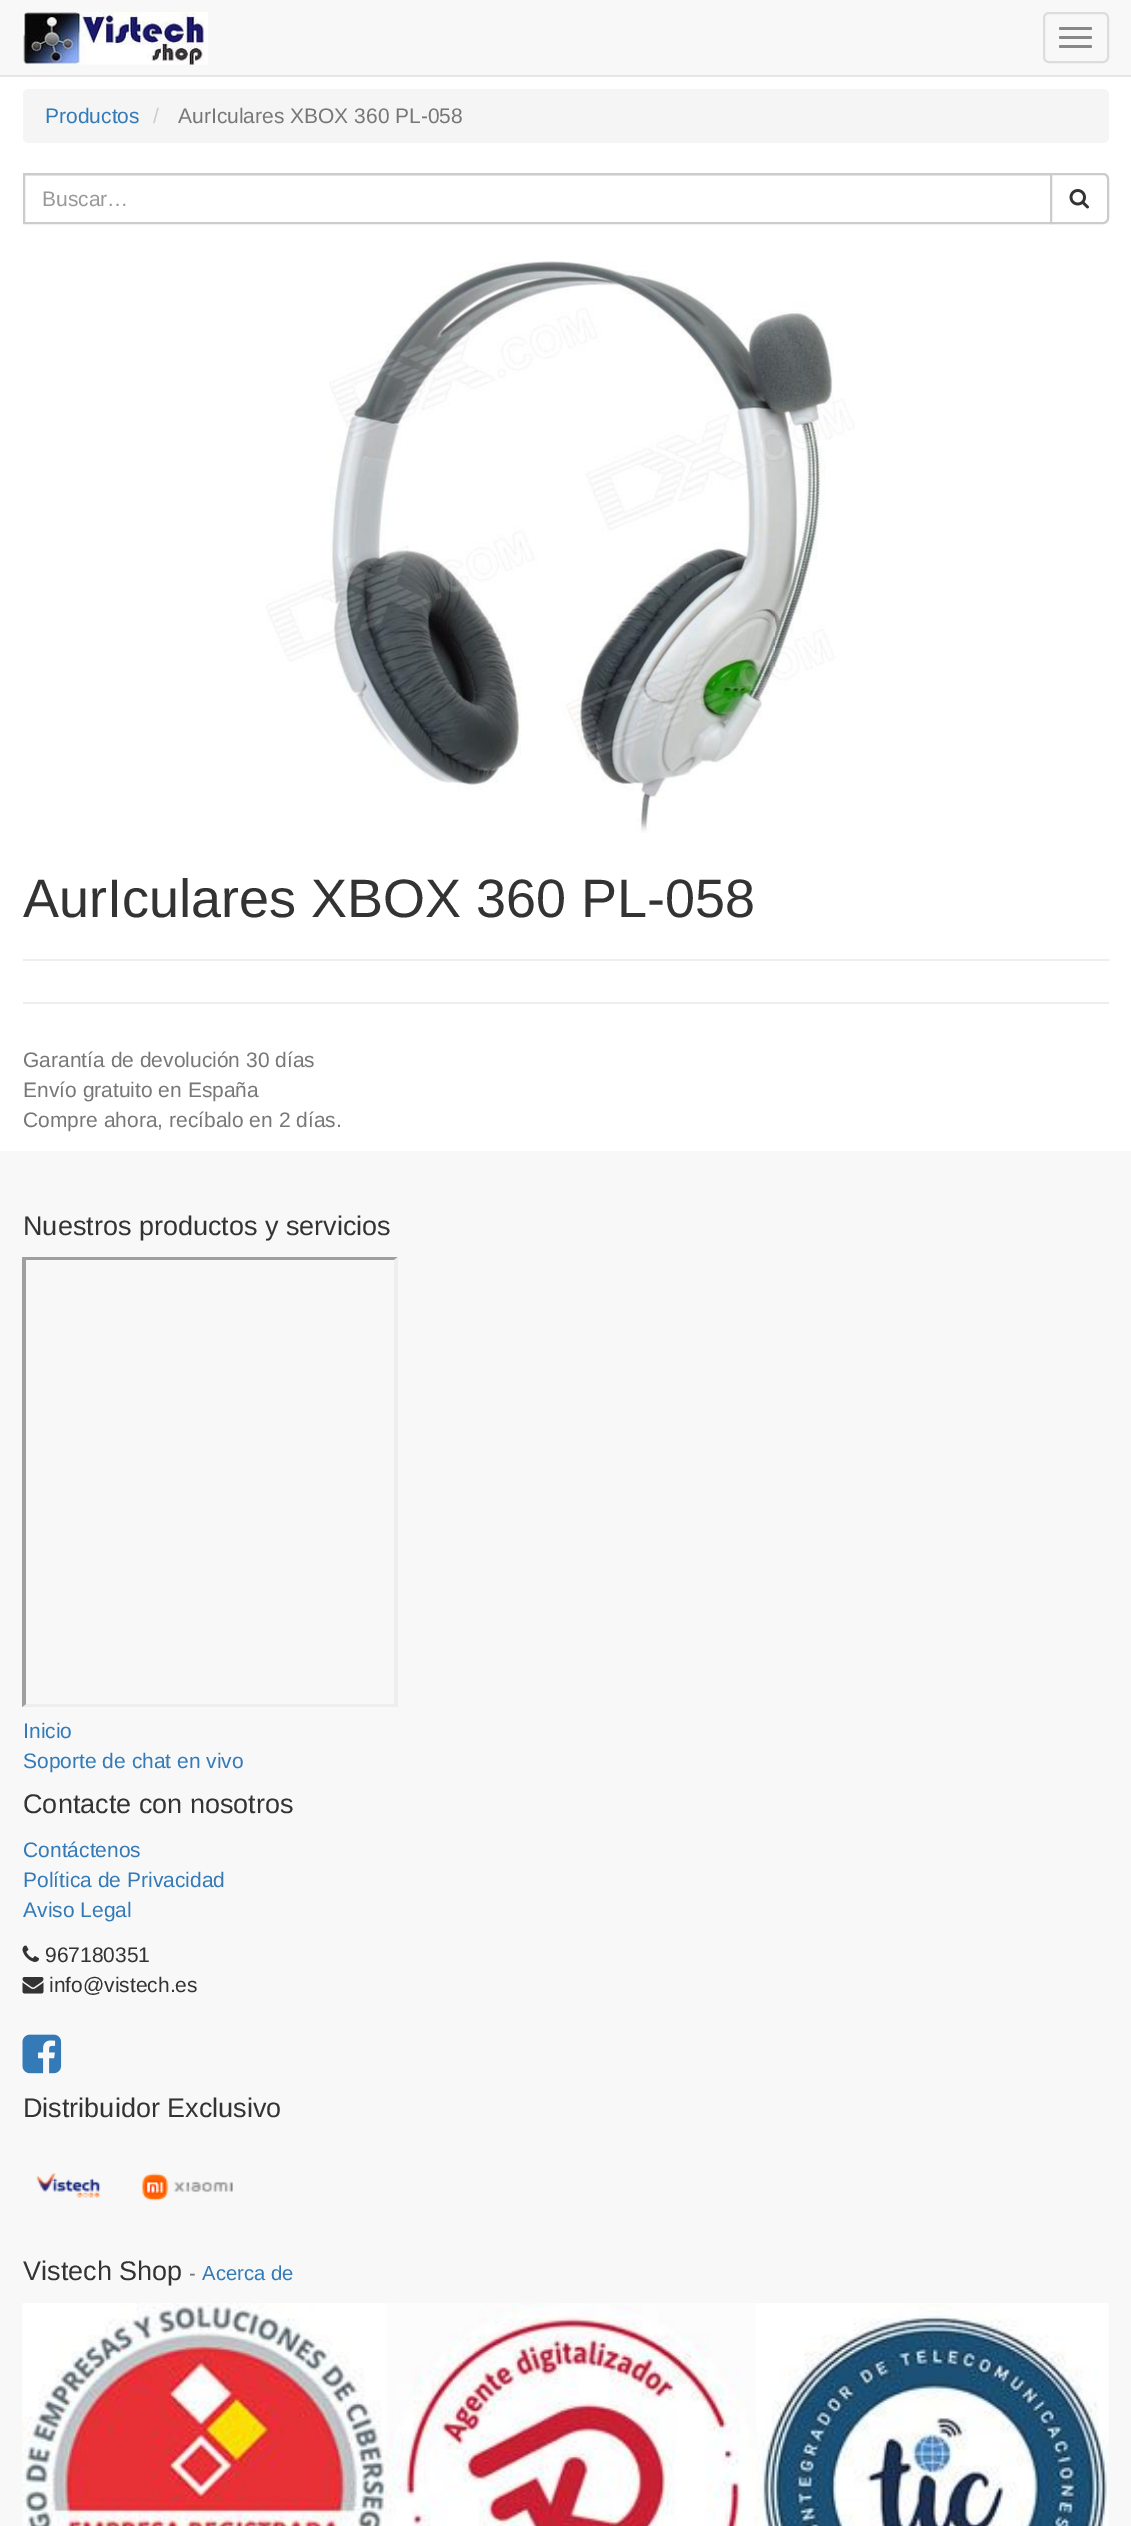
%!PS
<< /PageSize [1131 2526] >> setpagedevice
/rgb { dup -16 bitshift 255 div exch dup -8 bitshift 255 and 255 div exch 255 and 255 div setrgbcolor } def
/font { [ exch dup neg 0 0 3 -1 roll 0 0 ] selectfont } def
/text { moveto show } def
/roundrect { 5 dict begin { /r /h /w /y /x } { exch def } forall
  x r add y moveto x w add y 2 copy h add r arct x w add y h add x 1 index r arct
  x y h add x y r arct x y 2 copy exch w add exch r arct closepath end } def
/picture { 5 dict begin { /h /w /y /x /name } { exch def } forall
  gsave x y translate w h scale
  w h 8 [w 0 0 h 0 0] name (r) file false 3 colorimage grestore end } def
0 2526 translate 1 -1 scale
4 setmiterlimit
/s1 { /LiberationSans-Regular 21 font 16#337AB7 rgb } def
/s2 { /LiberationSans-Regular 21 font 16#CCCCCC rgb } def
/s3 { /LiberationSans-Regular 21 font 16#777777 rgb } def
/s4 { /LiberationSans-Regular 21 font 16#999999 rgb } def
/s5 { /LiberationSans-Regular 54 font 16#333333 rgb } def
/s6 { /LiberationSans-Regular 27 font 16#333333 rgb } def
/s7 { /LiberationSans-Regular 21 font 16#333333 rgb } def
/s8 { /LiberationSans-Regular 20.25 font 16#777777 rgb } def
/s9 { /LiberationSans-Regular 20.25 font 16#337AB7 rgb } def
16#FFFFFF rgb
0 0 1131 2526 rectfill
16#F8F8F8 rgb
0 0 1131 75 rectfill
16#E7E7E7 rgb
0 75 1131 2 rectfill
(pic1.raw) 23 12 185 53 picture
16#DDDDDD rgb
2 setlinewidth
1044 13 64 49 5 roundrect stroke
16#888888 rgb
1059 27 33 3 1.5 roundrect fill
1059 36 33 3 1.5 roundrect fill
1059 45 33 3 1.5 roundrect fill
16#F5F5F5 rgb
23 89 1086 54 6 roundrect fill
s1
(Productos) 45 123 text
s2
(/) 153 123 text
s3
(AurIculares XBOX 360 PL-058) 178 123 text
16#ECECEC rgb
24 175 1026 1 rectfill
16#CCCCCC rgb
24 174 1027 49 rectstroke
s4
(Buscar…) 42 206 text
16#FFFFFF rgb
1051 174 moveto 1103 174 lineto 1106 174 1108 176 1108 179 curveto 1108 218 lineto 1108 221 1106 223 1103 223 curveto 1051 223 lineto closepath gsave fill grestore
16#CCCCCC rgb
stroke
(pic2.raw) 1069 189 20 20 picture
(pic3.raw) 266 261 589 572 picture
s5
(AurIculares XBOX 360 PL-058) 23 917 text
16#EEEEEE rgb
23 959 1086 2 rectfill
23 1002 1086 2 rectfill
s3
(Garantía de devolución 30 días) 23 1067 text
(Envío gratuito en España) 23 1097 text
(Compre ahora, recíbalo en 2 días.) 23 1127 text
16#F8F8F8 rgb
0 1151 1131 1375 rectfill
s6
(Nuestros productos y servicios) 23 1235 text
16#9F9F9F rgb
22 1257 moveto 398 1257 lineto 394 1260 lineto 26 1260 lineto closepath fill
16#EEEEEE rgb
398 1257 moveto 398 1707 lineto 394 1704 lineto 394 1260 lineto closepath fill
398 1707 moveto 22 1707 lineto 26 1704 lineto 394 1704 lineto closepath fill
16#9F9F9F rgb
22 1707 moveto 22 1257 lineto 26 1260 lineto 26 1704 lineto closepath fill
s1
(Inicio) 23 1738 text
(Soporte de chat en vivo) 23 1768 text
s6
(Contacte con nosotros) 23 1813 text
s1
(Contáctenos) 23 1857 text
(Política de Privacidad) 23 1887 text
(Aviso Legal) 23 1917 text
(pic4.raw) 22 1945 17 17 picture
s7
(967180351) 45 1962 text
(pic5.raw) 22 1977 22 17 picture
(info@vistech.es) 49 1992 text
(pic6.raw) 22 2034 40 40 picture
s6
(Distribuidor Exclusivo) 23 2117 text
(pic7.raw) 36 2173 65 25 picture
(pic8.raw) 142 2173 91 28 picture
(Vistech Shop) 23 2280 text
s8
(-) 189 2280 text
s9
(Acerca de) 202 2280 text
(pic9.raw) 22 2303 1087 223 picture
showpage
